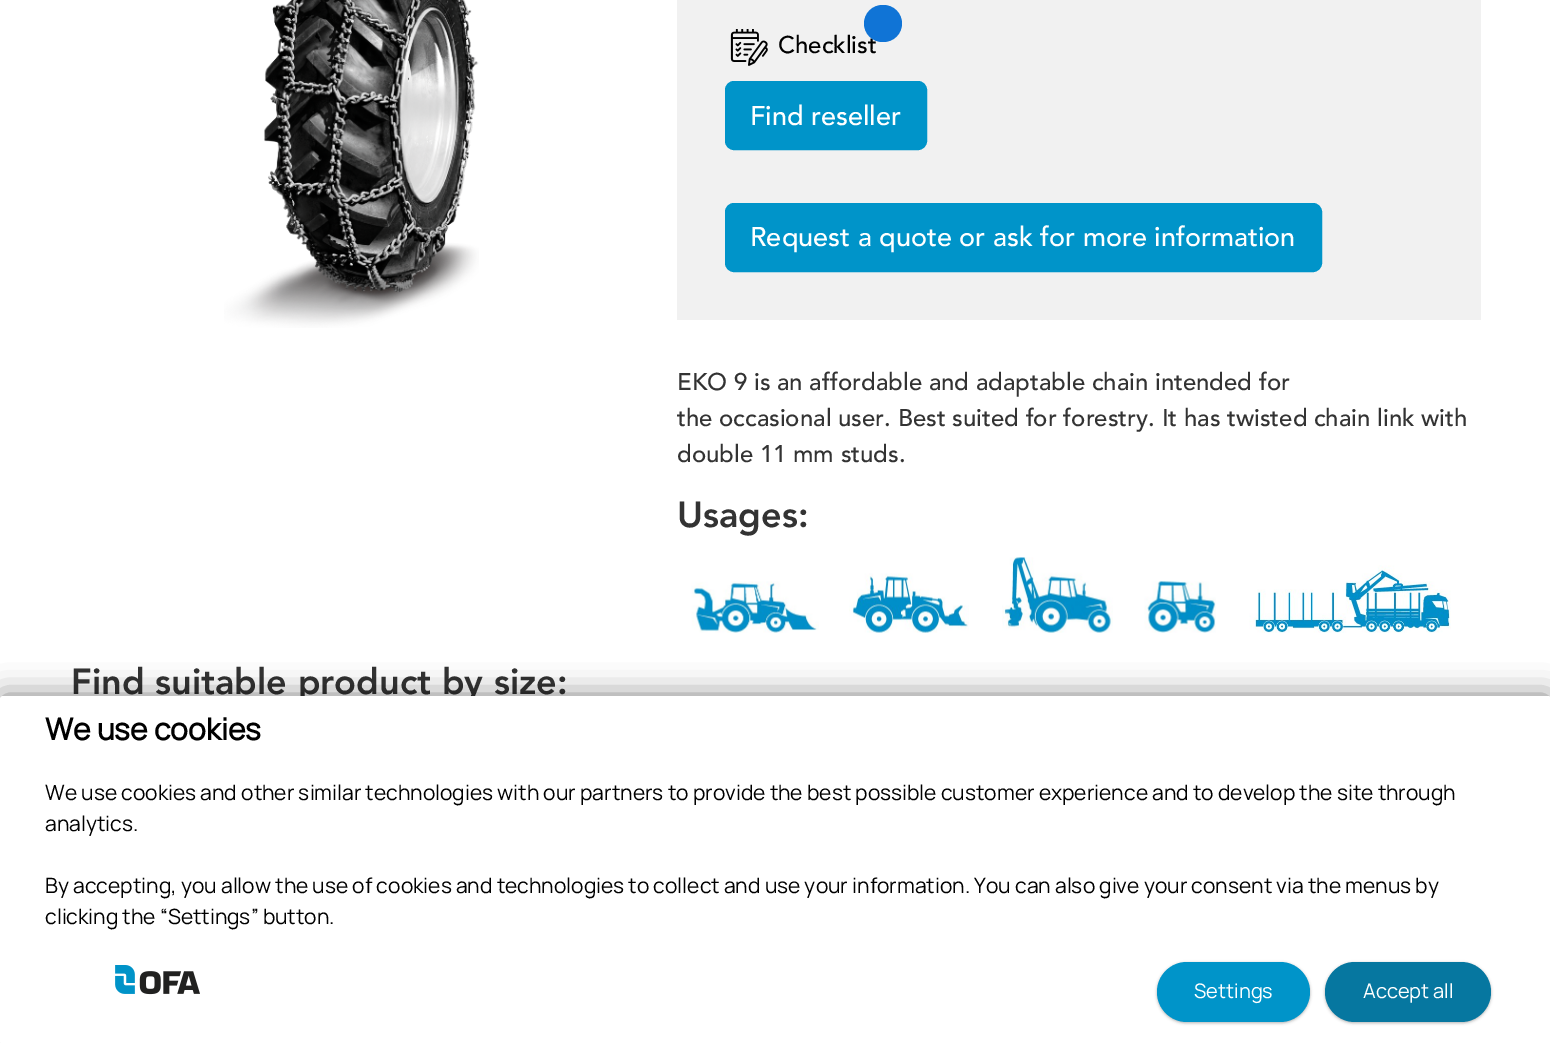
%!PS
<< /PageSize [1550 1043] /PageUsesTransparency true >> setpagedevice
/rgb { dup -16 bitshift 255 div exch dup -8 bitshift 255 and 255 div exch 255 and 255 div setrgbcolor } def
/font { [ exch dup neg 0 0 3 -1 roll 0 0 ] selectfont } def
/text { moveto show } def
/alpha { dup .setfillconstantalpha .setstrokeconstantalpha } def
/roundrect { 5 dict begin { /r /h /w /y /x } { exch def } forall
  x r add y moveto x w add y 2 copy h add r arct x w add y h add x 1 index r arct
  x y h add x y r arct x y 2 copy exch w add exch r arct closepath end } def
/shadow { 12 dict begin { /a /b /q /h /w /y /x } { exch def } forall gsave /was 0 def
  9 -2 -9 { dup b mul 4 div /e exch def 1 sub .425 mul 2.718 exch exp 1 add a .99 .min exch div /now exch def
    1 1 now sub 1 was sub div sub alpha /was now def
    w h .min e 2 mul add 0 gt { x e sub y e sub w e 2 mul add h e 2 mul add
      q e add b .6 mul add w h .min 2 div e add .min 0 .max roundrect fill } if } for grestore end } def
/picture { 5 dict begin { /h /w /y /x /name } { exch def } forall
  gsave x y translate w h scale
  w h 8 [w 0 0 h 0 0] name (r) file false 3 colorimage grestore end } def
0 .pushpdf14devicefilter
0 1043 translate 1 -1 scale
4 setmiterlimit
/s1 { /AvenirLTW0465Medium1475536-Medium 24 font 16#000000 rgb } def
/s2 { /AvenirLTW0465Medium1475536-Medium 27 font 16#FFFFFF rgb } def
/s3 { /AvenirLTW0465Medium1475536-Medium 24 font 16#333333 rgb } def
/s4 { /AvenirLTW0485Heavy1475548-Black 36 font 16#333333 rgb } def
/s5 { /Manrope-Bold 30 font 16#000000 rgb } def
/s6 { /Manrope-ExtraLight 21 font 16#000000 rgb } def
/s7 { /Manrope-ExtraLight 20 font 16#FFFFFF rgb } def
16#FFFFFF rgb
0 0 1550 1043 rectfill
(pic1.raw) 224 0 255 328 picture
16#F1F1F1 rgb
677 0 804 320 rectfill
s1
(Checklist) 778 53 text
16#1074D6 rgb
864 5 38 37 18.5 roundrect fill
(pic2.raw) 730 29 38 37 picture
16#0094C9 rgb
726 82 200 67 8 roundrect gsave fill grestore
2 setlinewidth
stroke
s2
(Find reseller) 750 125 text
16#0094C9 rgb
726 204 595 67 8 roundrect gsave fill grestore
stroke
s2
(Request a quote or ask for more information) 750 246 text
s3
(EKO 9 is an affordable and adaptable chain intended for) 677 390 text
(the occasional user. Best suited for forestry. It has twisted chain link with) 677 426 text
(double 11 mm studs.) 677 462 text
s4
(Usages:) 677 527 text
(pic3.raw) 691 581 128 52 picture
(pic4.raw) 849 573 120 60 picture
(pic5.raw) 1002 557 111 76 picture
(pic6.raw) 1144 580 72 53 picture
(pic7.raw) 1249 565 202 68 picture
(Find suitable product by size:) 71 694 text
16#000000 rgb
0 696 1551 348 3 15 0.5 shadow
16#FFFFFF rgb
0 696 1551 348 3 roundrect fill
s5
(We use cookies) 45 740 text
s6
(We use cookies and other similar technologies with our partners to provide the best possible customer experience and to develop the site through) 45 800 text
(analytics.) 45 831 text
(By accepting, you allow the use of cookies and technologies to collect and use your information. You can also give your consent via the menus by) 45 893 text
(clicking the “Settings” button.) 45 924 text
16#FFFFFF rgb
0 939 moveto 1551 939 lineto 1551 1041 lineto 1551 1042.5 1549.5 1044 1548 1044 curveto 3 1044 lineto 1.5 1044 0 1042.5 0 1041 curveto closepath fill
(pic8.raw) 115 965 85 30 picture
16#000000 rgb
1157 963 153 60 30 1.5 0.3 shadow
16#0094C9 rgb
1157 962 153 60 30 roundrect fill
s7
(Settings) 1194 998 text
16#000000 rgb
1325 963 166 60 30 1.5 0.3 shadow
16#0677A0 rgb
1325 962 166 60 30 roundrect fill
s7
(Accept all) 1363 998 text
.poppdf14devicefilter showpage
